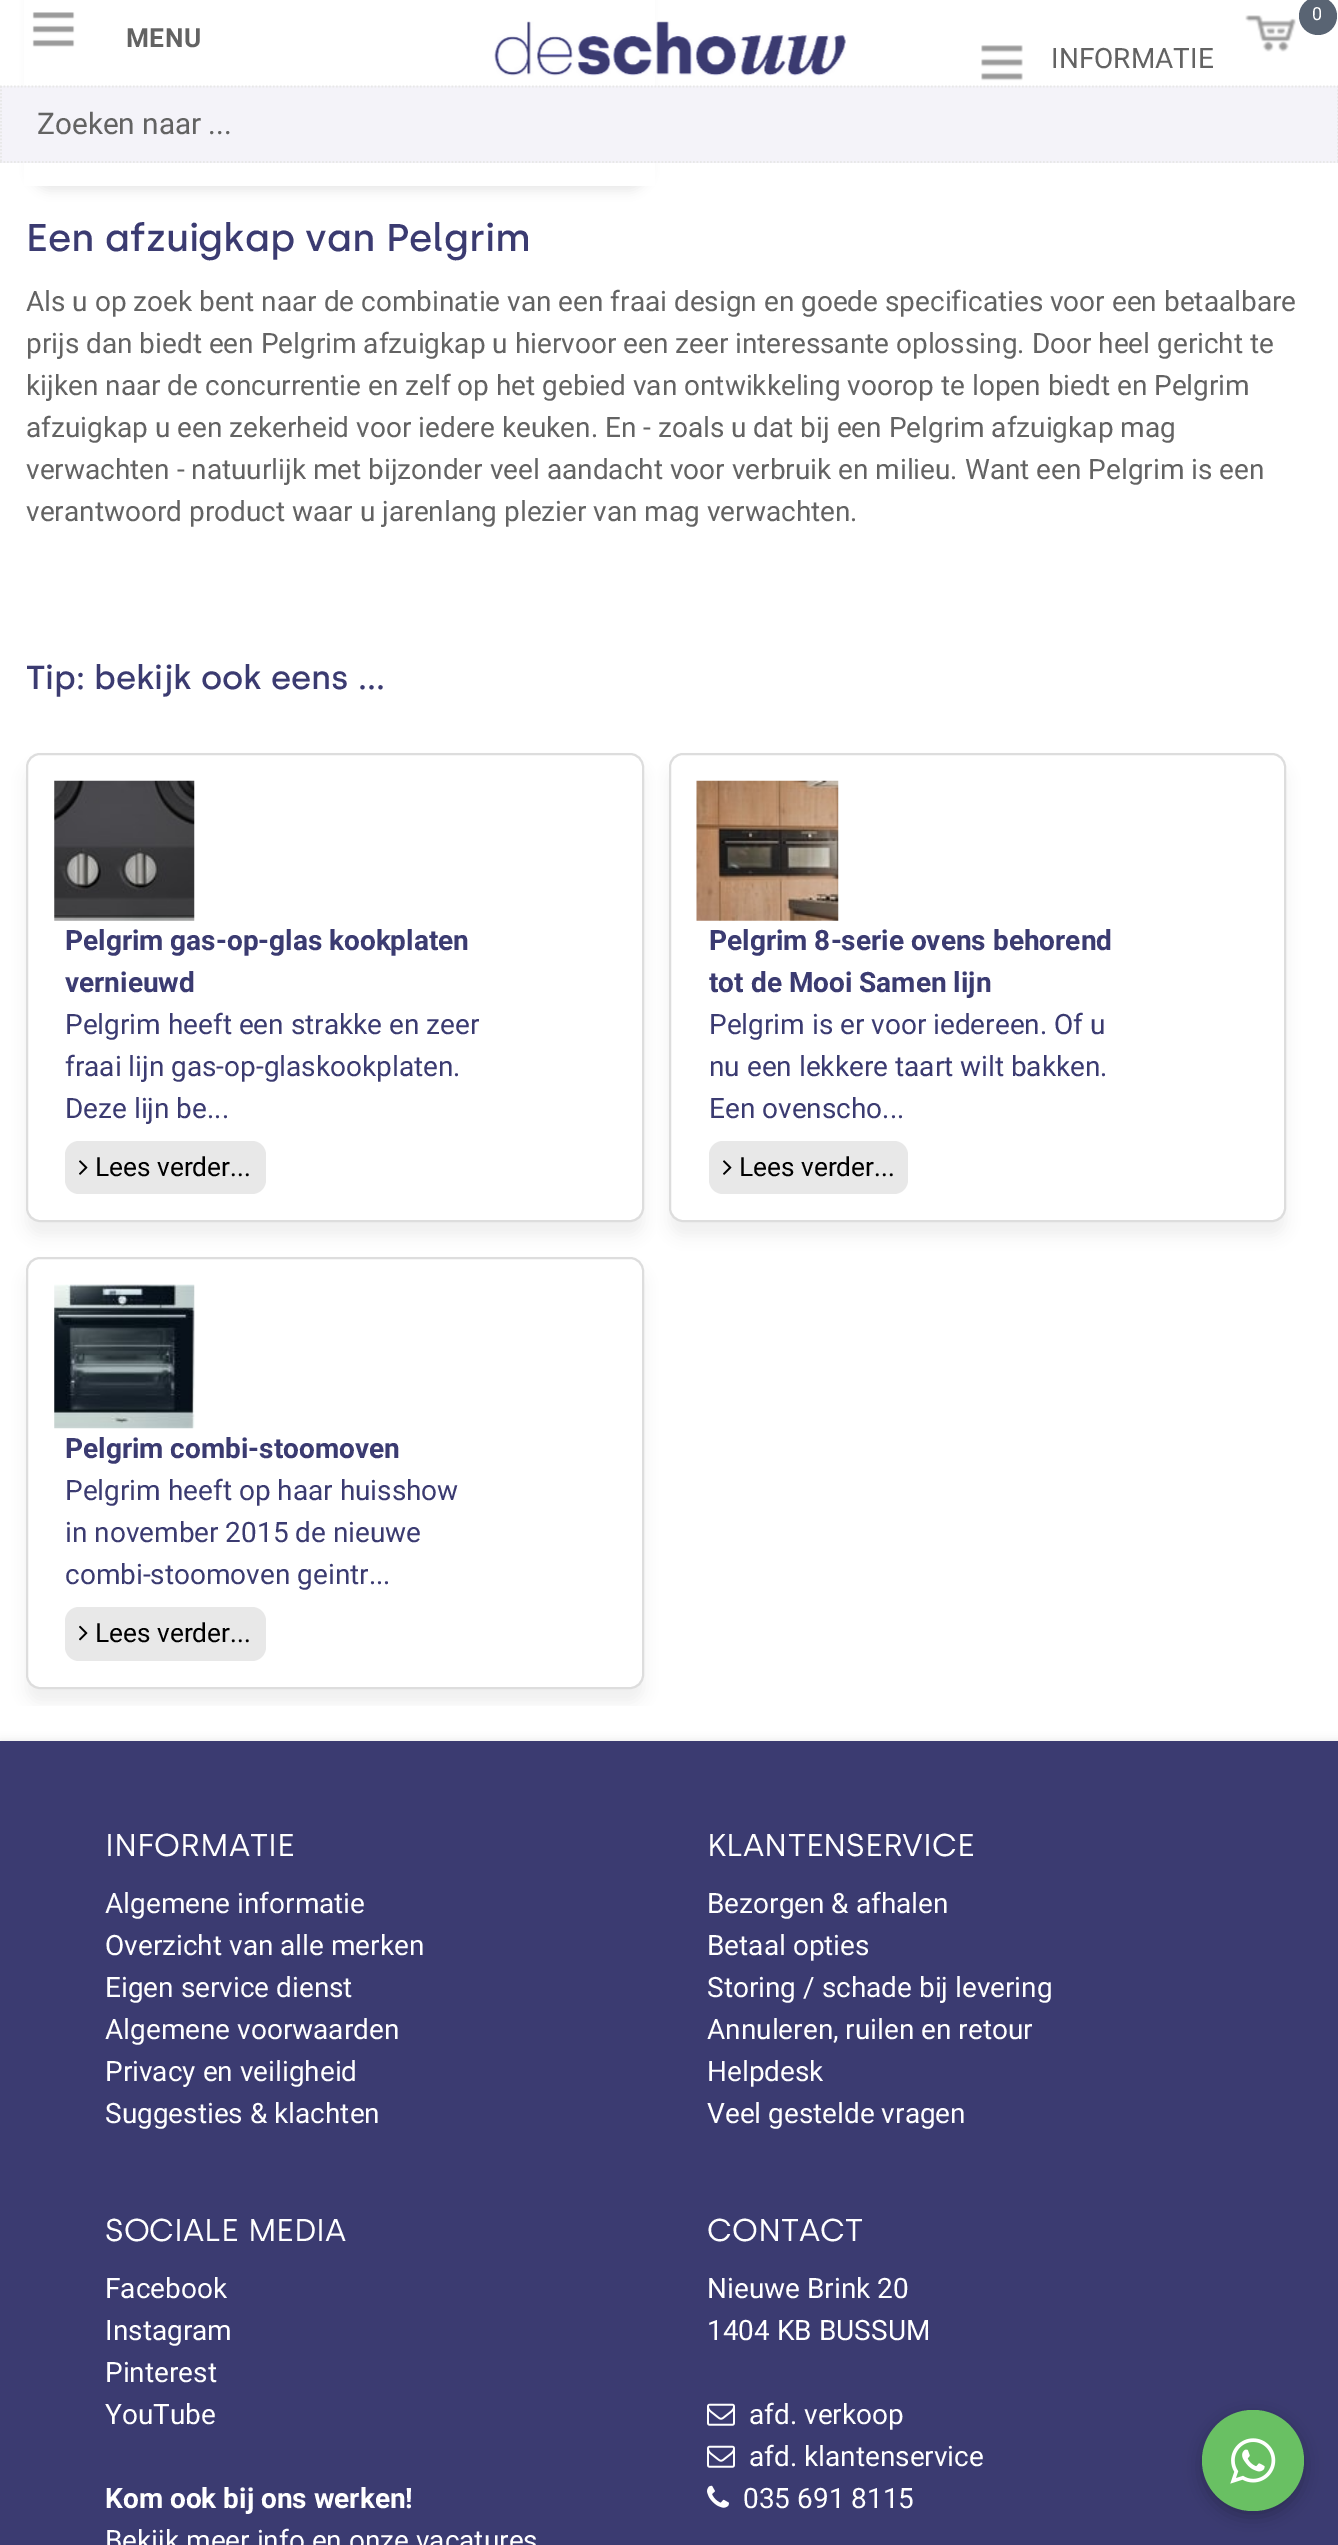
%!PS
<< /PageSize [1338 2545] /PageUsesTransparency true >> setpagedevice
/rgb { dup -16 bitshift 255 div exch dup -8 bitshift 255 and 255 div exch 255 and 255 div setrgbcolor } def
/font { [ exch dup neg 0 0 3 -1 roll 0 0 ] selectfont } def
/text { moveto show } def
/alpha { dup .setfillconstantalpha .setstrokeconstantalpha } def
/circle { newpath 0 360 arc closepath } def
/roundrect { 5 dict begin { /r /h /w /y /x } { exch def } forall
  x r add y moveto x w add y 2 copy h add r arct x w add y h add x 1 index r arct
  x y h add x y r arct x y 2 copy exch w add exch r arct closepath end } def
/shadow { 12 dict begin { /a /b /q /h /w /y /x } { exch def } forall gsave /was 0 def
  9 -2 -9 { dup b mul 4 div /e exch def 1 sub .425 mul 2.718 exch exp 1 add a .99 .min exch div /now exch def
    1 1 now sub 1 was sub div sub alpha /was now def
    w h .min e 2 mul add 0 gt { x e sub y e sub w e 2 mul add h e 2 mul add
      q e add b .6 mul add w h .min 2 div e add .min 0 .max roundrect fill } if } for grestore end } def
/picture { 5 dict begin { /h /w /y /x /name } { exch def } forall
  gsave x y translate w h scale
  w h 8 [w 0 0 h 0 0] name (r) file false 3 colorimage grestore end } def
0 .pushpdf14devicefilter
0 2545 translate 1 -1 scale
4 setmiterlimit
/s1 { /Roboto-Regular 18 font 16#FFFFFF rgb } def
/s2 { /Roboto-Regular 28 font 16#636363 rgb } def
/s3 { /Roboto-Regular 29.75 font 16#636363 rgb } def
/s4 { /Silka-Medium 38.5 font 16#3B3B71 rgb } def
/s5 { /Silka-Medium 33.25 font 16#3B3B71 rgb } def
/s6 { /Roboto-Bold 28 font 16#3B3B71 rgb } def
/s7 { /Roboto-Regular 28 font 16#3B3B71 rgb } def
/s8 { /Roboto-Regular 26.25 font 16#000000 rgb } def
/s9 { /Silka-Regular 31.5 font 16#FFFFFF rgb } def
/s10 { /Roboto-Regular 28 font 16#FFFFFF rgb } def
/s11 { /Roboto-Bold 28 font 16#FFFFFF rgb } def
16#FFFFFF rgb
0 0 1338 2545 rectfill
16#000000 rgb
30 -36 619 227 21 5 0.08 shadow
16#FFFFFF rgb
24 0 631 186 rectfill
(pic1.raw) 1245 15 51 37 picture
16#596473 rgb
1318 16 19 circle fill
s1
(0) 1312 20 text
(pic2.raw) 32 12 43 35 picture
/Roboto-Bold 26.25 font
16#636363 rgb
126 47 moveto 0.5 0 (MENU) ashow
(pic3.raw) 981 45 42 36 picture
s2
(INFORMATIE) 1051 68 text
(pic4.raw) 494 21 352 55 picture
16#F4F3F9 rgb
0 86 1338 77 rectfill
16#E8E8E8 rgb
1.8 setlinewidth
[1.75 1.75] 0 setdash
0 86.5 moveto 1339 86.5 lineto stroke
1338 86 moveto 1338 163 lineto stroke
0 162 moveto 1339 162 lineto stroke
1 86 moveto 1 163 lineto stroke
s3
(Zoeken naar ...) 37 134 text
s4
(Een afzuigkap van Pelgrim) 26 251 text
s2
(Als u op zoek bent naar de combinatie van een fraai design en goede specificaties voor een betaalbare) 26 311 text
(prijs dan biedt een Pelgrim afzuigkap u hiervoor een zeer interessante oplossing. Door heel gericht te) 26 353 text
(kijken naar de concurrentie en zelf op het gebied van ontwikkeling voorop te lopen biedt en Pelgrim) 26 395 text
(afzuigkap u een zekerheid voor iedere keuken. En - zoals u dat bij een Pelgrim afzuigkap mag) 26 437 text
(verwachten - natuurlijk met bijzonder veel aandacht voor verbruik en milieu. Want een Pelgrim is een) 26 479 text
(verantwoord product waar u jarenlang plezier van mag verwachten.) 26 521 text
s5
(Tip: bekijk ook eens ...) 26 689 text
gsave
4 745 moveto 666 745 lineto 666 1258 lineto 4 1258 lineto closepath 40 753 moveto 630 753 lineto 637.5 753 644 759.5 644 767 curveto 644 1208 lineto 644 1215.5 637.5 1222 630 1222 curveto 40 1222 lineto 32.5 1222 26 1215.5 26 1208 curveto 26 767 lineto 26 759.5 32.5 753 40 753 curveto closepath eoclip newpath
16#EFEFEF rgb
26 767 618 469 14 7 1 shadow
grestore
16#DDDDDD rgb
2 setlinewidth
[] 0 setdash
27 754 616 467 13 roundrect stroke
(pic5.raw) 54 780 141 141 picture
s6
(Pelgrim gas-op-glas kookplaten) 65 950 text
(vernieuwd) 65 992 text
s7
(Pelgrim heeft een strakke en zeer) 65 1034 text
(fraai lijn gas-op-glaskookplaten.) 65 1076 text
(Deze lijn be...) 65 1118 text
16#E8E8E8 rgb
65 1141 201 53 14 roundrect fill
(pic6.raw) 79 1160 9 15 picture
s8
(Lees verder...) 95 1176 text
gsave
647 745 moveto 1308 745 lineto 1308 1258 lineto 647 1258 lineto closepath 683 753 moveto 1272 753 lineto 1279.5 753 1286 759.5 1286 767 curveto 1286 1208 lineto 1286 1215.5 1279.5 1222 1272 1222 curveto 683 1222 lineto 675.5 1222 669 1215.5 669 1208 curveto 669 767 lineto 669 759.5 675.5 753 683 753 curveto closepath eoclip newpath
16#EFEFEF rgb
669 767 617 469 14 7 1 shadow
grestore
16#DDDDDD rgb
670 754 615 467 13 roundrect stroke
(pic7.raw) 696 780 143 141 picture
s6
(Pelgrim 8-serie ovens behorend) 709 950 text
(tot de Mooi Samen lijn) 709 992 text
s7
(Pelgrim is er voor iedereen. Of u) 709 1034 text
(nu een lekkere taart wilt bakken.) 709 1076 text
(Een ovenscho...) 709 1118 text
16#E8E8E8 rgb
709 1141 199 53 14 roundrect fill
(pic6.raw) 723 1160 9 15 picture
s8
(Lees verder...) 739 1176 text
gsave
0 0 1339 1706 rectclip
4 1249 moveto 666 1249 lineto 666 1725 lineto 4 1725 lineto closepath 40 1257 moveto 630 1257 lineto 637.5 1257 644 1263.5 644 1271 curveto 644 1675 lineto 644 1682.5 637.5 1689 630 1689 curveto 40 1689 lineto 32.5 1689 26 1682.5 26 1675 curveto 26 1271 lineto 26 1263.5 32.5 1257 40 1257 curveto closepath eoclip newpath
16#EFEFEF rgb
26 1271 618 432 14 7 1 shadow
grestore
16#DDDDDD rgb
27 1258 616 430 13 roundrect stroke
(pic8.raw) 54 1284 141 145 picture
s6
(Pelgrim combi-stoomoven) 65 1458 text
s7
(Pelgrim heeft op haar huisshow) 65 1500 text
(in november 2015 de nieuwe) 65 1542 text
(combi-stoomoven geintr...) 65 1584 text
16#E8E8E8 rgb
65 1607 201 54 14 roundrect fill
(pic9.raw) 79 1625 9 16 picture
s8
(Lees verder...) 95 1642 text
16#323232 rgb
0 1741 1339 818 0 4.5 0.12 shadow
16#3B3B71 rgb
0 1741 1338 804 rectfill
s9
(INFORMATIE) 105 1856 text
s10
(Algemene informatie) 105 1913 text
(Overzicht van alle merken) 105 1955 text
(Eigen service dienst) 105 1997 text
(Algemene voorwaarden) 105 2039 text
(Privacy en veiligheid) 105 2081 text
(Suggesties & klachten) 105 2123 text
s9
(KLANTENSERVICE) 707 1856 text
s10
(Bezorgen & afhalen) 707 1913 text
(Betaal opties) 707 1955 text
(Storing / schade bij levering) 707 1997 text
(Annuleren, ruilen en retour) 707 2039 text
(Helpdesk) 707 2081 text
(Veel gestelde vragen) 707 2123 text
s9
(SOCIALE MEDIA) 105 2241 text
s10
(Facebook) 105 2298 text
(Instagram) 105 2340 text
(Pinterest) 105 2382 text
(YouTube) 105 2424 text
s11
(Kom ook bij ons werken!) 105 2508 text
s10
(Bekijk meer info en onze vacatures) 105 2550 text
s9
(CONTACT) 707 2241 text
s10
(Nieuwe Brink 20) 707 2298 text
(1404 KB BUSSUM) 707 2340 text
(pic10.raw) 707 2403 28 23 picture
(afd. verkoop) 749 2424 text
(pic10.raw) 707 2445 28 23 picture
(afd. klantenservice) 749 2466 text
(pic11.raw) 707 2485 22 23 picture
(035 691 8115) 743 2508 text
16#000000 rgb
1202 2415 102 102 51 9 0.25 shadow
16#69C063 rgb
1202 2410 102 101 50.5 roundrect fill
(pic12.raw) 1230 2438 46 46 picture
.poppdf14devicefilter showpage
